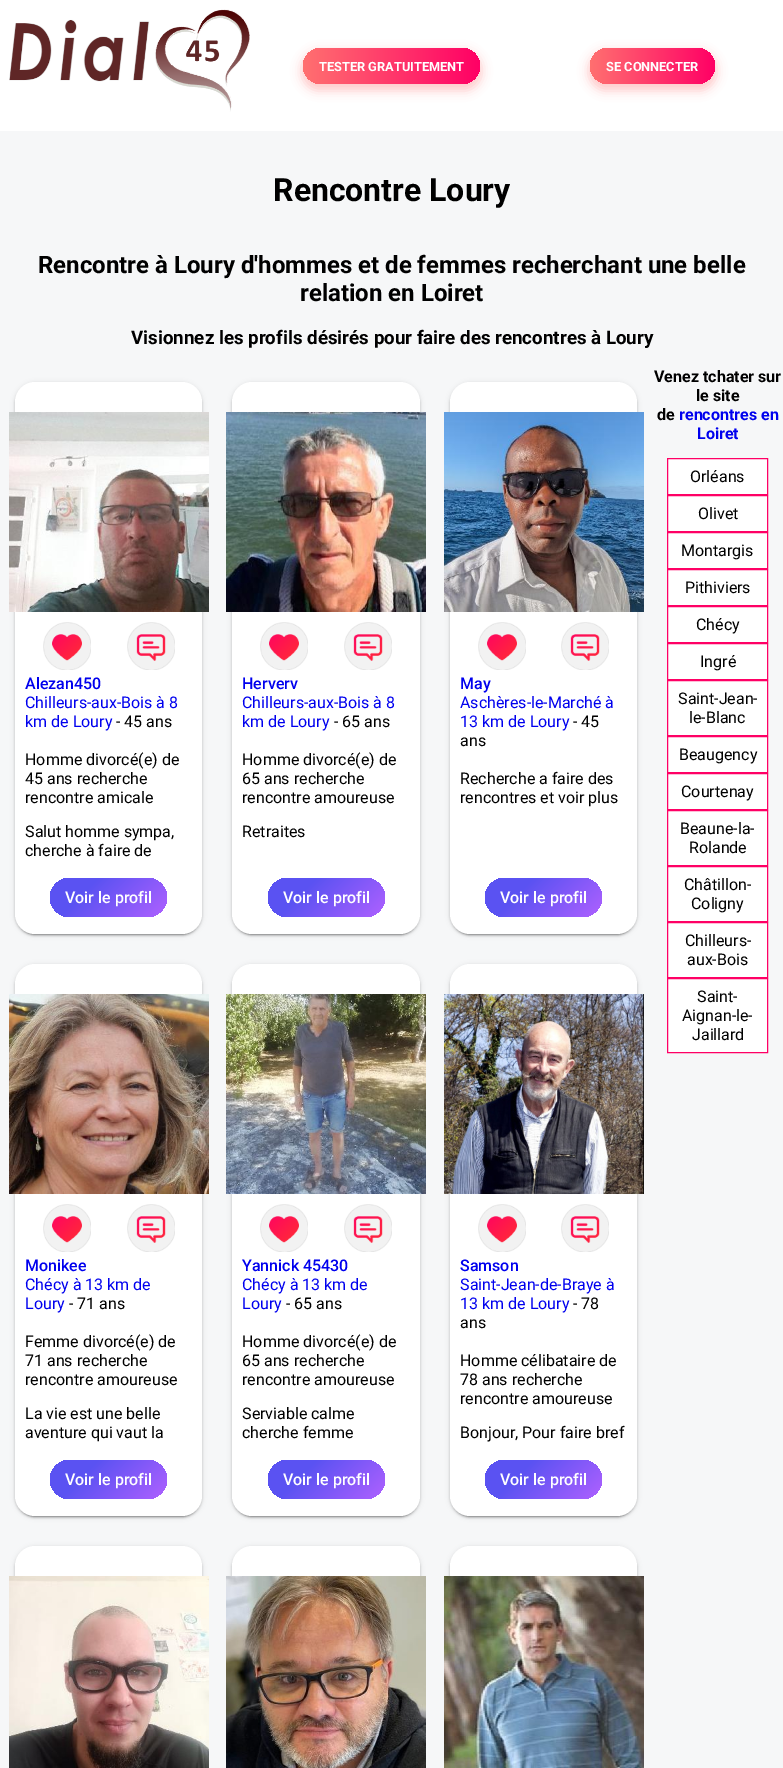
%!PS
<< /PageSize [783 1768] /PageUsesTransparency true >> setpagedevice
/rgb { dup -16 bitshift 255 div exch dup -8 bitshift 255 and 255 div exch 255 and 255 div setrgbcolor } def
/font { [ exch dup neg 0 0 3 -1 roll 0 0 ] selectfont } def
/text { moveto show } def
/alpha { dup .setfillconstantalpha .setstrokeconstantalpha } def
/roundrect { 5 dict begin { /r /h /w /y /x } { exch def } forall
  x r add y moveto x w add y 2 copy h add r arct x w add y h add x 1 index r arct
  x y h add x y r arct x y 2 copy exch w add exch r arct closepath end } def
/shadow { 12 dict begin { /a /b /q /h /w /y /x } { exch def } forall gsave /was 0 def
  9 -2 -9 { dup b mul 4 div /e exch def 1 sub .425 mul 2.718 exch exp 1 add a .99 .min exch div /now exch def
    1 1 now sub 1 was sub div sub alpha /was now def
    w h .min e 2 mul add 0 gt { x e sub y e sub w e 2 mul add h e 2 mul add
      q e add b .6 mul add w h .min 2 div e add .min 0 .max roundrect fill } if } for grestore end } def
/picture { 5 dict begin { /h /w /y /x /name } { exch def } forall
  gsave x y translate w h scale
  w h 8 [w 0 0 h 0 0] name (r) file false 3 colorimage grestore end } def
0 .pushpdf14devicefilter
0 1768 translate 1 -1 scale
4 setmiterlimit
/s1 { /Roboto-Bold 12.75 font 16#FFFFFF rgb } def
/s2 { /Roboto-Bold 32 font 16#000000 rgb } def
/s3 { /Roboto-Bold 24 font 16#000000 rgb } def
/s4 { /Roboto-Bold 18.75 font 16#000000 rgb } def
/s5 { /Roboto-Medium 16 font 16#0000EE rgb } def
/s6 { /Roboto-Regular 16 font 16#0000EE rgb } def
/s7 { /Roboto-Regular 16 font 16#000000 rgb } def
/s8 { /Roboto-Medium 16 font 16#FFFFFF rgb } def
/s9 { /Roboto-Bold 16 font 16#000000 rgb } def
/s10 { /Roboto-Bold 16 font 16#0000EE rgb } def
16#F6F7F8 rgb
0 0 783 1768 rectfill
16#FFFFFF rgb
0 0 783 131 rectfill
(pic1.raw) 9 9 241 103 picture
16#FF7070 rgb
301 51 181 40 20 5 0.36 shadow
gsave 303 48 177 36 18 roundrect clip newpath
<< /ShadingType 2 /ColorSpace /DeviceRGB /Coords [303 66 480 66] /Extend [true true] /Function << /FunctionType 2 /Domain [0 1] /C0 [1 0.439 0.439] /C1 [1 0 0.396] /N 1 >> >> shfill grestore
s1
(TESTER GRATUITEMENT) 319 71 text
16#FF7070 rgb
588 51 129 40 20 5 0.36 shadow
gsave 590 48 125 36 18 roundrect clip newpath
<< /ShadingType 2 /ColorSpace /DeviceRGB /Coords [590 66 715 66] /Extend [true true] /Function << /FunctionType 2 /Domain [0 1] /C0 [1 0.439 0.439] /C1 [1 0 0.396] /N 1 >> >> shfill grestore
s1
(SE CONNECTER) 606 71 text
s2
(Rencontre Loury) 273 201 text
s3
(Rencontre à Loury d'hommes et de femmes recherchant une belle) 38 273 text
(relation en Loiret) 300 301 text
s4
(Visionnez les profils désirés pour faire des rencontres à Loury) 131 344 text
15 383 187 552 20 2.5 0.12 shadow
15 384 187 552 20 1 0.14 shadow
17 387 183 548 18 0.5 0.2 shadow
16#FFFFFF rgb
15 382 187 552 20 roundrect fill
(pic2.raw) 9 412 200 200 picture
(pic3.raw) 43 622 48 48 picture
(pic4.raw) 127 622 48 48 picture
s5
(Alezan450) 25 689 text
s6
(Chilleurs-aux-Bois à 8) 25 708 text
(km de Loury) 25 727 text
s7
(- 45 ans) 116 727 text
(Homme divorcé\(e\) de) 25 765 text
(45 ans recherche) 25 784 text
(rencontre amicale) 25 803 text
(Salut homme sympa,) 25 837 text
(cherche à faire de) 25 856 text
gsave 50 878 117 39 19.5 roundrect clip newpath
<< /ShadingType 2 /ColorSpace /DeviceRGB /Coords [70 859 148 937] /Extend [true true] /Function << /FunctionType 3 /Domain [0 1] /Functions [<< /FunctionType 2 /Domain [0 1] /C0 [0.353 0.322 0.949] /C1 [0.353 0.322 0.949] /N 1 >> << /FunctionType 2 /Domain [0 1] /C0 [0.353 0.322 0.949] /C1 [0.69 0.38 1] /N 1 >>] /Bounds [0.3] /Encode [0 1 0 1] >> >> shfill grestore
s8
(Voir le profil) 65 903 text
16#000000 rgb
232 383 188 552 20 2.5 0.12 shadow
232 384 188 552 20 1 0.14 shadow
234 387 184 548 18 0.5 0.2 shadow
16#FFFFFF rgb
232 382 188 552 20 roundrect fill
(pic5.raw) 226 412 200 200 picture
(pic6.raw) 260 622 48 48 picture
(pic7.raw) 344 622 48 48 picture
s5
(Herverv) 242 689 text
s6
(Chilleurs-aux-Bois à 8) 242 708 text
(km de Loury) 242 727 text
s7
(- 65 ans) 334 727 text
(Homme divorcé\(e\) de) 242 765 text
(65 ans recherche) 242 784 text
(rencontre amoureuse) 242 803 text
(Retraites) 242 837 text
gsave 268 878 117 39 19.5 roundrect clip newpath
<< /ShadingType 2 /ColorSpace /DeviceRGB /Coords [288 859 366 937] /Extend [true true] /Function << /FunctionType 3 /Domain [0 1] /Functions [<< /FunctionType 2 /Domain [0 1] /C0 [0.353 0.322 0.949] /C1 [0.353 0.322 0.949] /N 1 >> << /FunctionType 2 /Domain [0 1] /C0 [0.353 0.322 0.949] /C1 [0.69 0.38 1] /N 1 >>] /Bounds [0.3] /Encode [0 1 0 1] >> >> shfill grestore
s8
(Voir le profil) 283 903 text
16#000000 rgb
450 383 187 552 20 2.5 0.12 shadow
450 384 187 552 20 1 0.14 shadow
452 387 183 548 18 0.5 0.2 shadow
16#FFFFFF rgb
450 382 187 552 20 roundrect fill
(pic8.raw) 444 412 200 200 picture
(pic9.raw) 478 622 48 48 picture
(pic4.raw) 561 622 48 48 picture
s5
(May) 460 689 text
s6
(Aschères-le-Marché à) 460 708 text
(13 km de Loury) 460 727 text
s7
(- 45) 573 727 text
(ans) 460 746 text
(Recherche a faire des) 460 784 text
(rencontres et voir plus) 460 803 text
gsave 485 878 117 39 19.5 roundrect clip newpath
<< /ShadingType 2 /ColorSpace /DeviceRGB /Coords [505 859 583 937] /Extend [true true] /Function << /FunctionType 3 /Domain [0 1] /Functions [<< /FunctionType 2 /Domain [0 1] /C0 [0.353 0.322 0.949] /C1 [0.353 0.322 0.949] /N 1 >> << /FunctionType 2 /Domain [0 1] /C0 [0.353 0.322 0.949] /C1 [0.69 0.38 1] /N 1 >>] /Bounds [0.3] /Encode [0 1 0 1] >> >> shfill grestore
s8
(Voir le profil) 500 903 text
16#000000 rgb
15 965 187 552 20 2.5 0.12 shadow
15 966 187 552 20 1 0.14 shadow
17 969 183 548 18 0.5 0.2 shadow
16#FFFFFF rgb
15 964 187 552 20 roundrect fill
(pic10.raw) 9 994 200 200 picture
(pic3.raw) 43 1204 48 48 picture
(pic4.raw) 127 1204 48 48 picture
s5
(Monikee) 25 1271 text
s6
(Chécy à 13 km de) 25 1290 text
(Loury) 25 1309 text
s7
(- 71 ans) 69 1309 text
(Femme divorcé\(e\) de) 25 1347 text
(71 ans recherche) 25 1366 text
(rencontre amoureuse) 25 1385 text
(La vie est une belle) 25 1419 text
(aventure qui vaut la) 25 1438 text
gsave 50 1460 117 39 19.5 roundrect clip newpath
<< /ShadingType 2 /ColorSpace /DeviceRGB /Coords [70 1441 148 1519] /Extend [true true] /Function << /FunctionType 3 /Domain [0 1] /Functions [<< /FunctionType 2 /Domain [0 1] /C0 [0.353 0.322 0.949] /C1 [0.353 0.322 0.949] /N 1 >> << /FunctionType 2 /Domain [0 1] /C0 [0.353 0.322 0.949] /C1 [0.69 0.38 1] /N 1 >>] /Bounds [0.3] /Encode [0 1 0 1] >> >> shfill grestore
s8
(Voir le profil) 65 1485 text
16#000000 rgb
232 965 188 552 20 2.5 0.12 shadow
232 966 188 552 20 1 0.14 shadow
234 969 184 548 18 0.5 0.2 shadow
16#FFFFFF rgb
232 964 188 552 20 roundrect fill
(pic11.raw) 226 994 200 200 picture
(pic6.raw) 260 1204 48 48 picture
(pic7.raw) 344 1204 48 48 picture
s5
(Yannick 45430) 242 1271 text
s6
(Chécy à 13 km de) 242 1290 text
(Loury) 242 1309 text
s7
(- 65 ans) 286 1309 text
(Homme divorcé\(e\) de) 242 1347 text
(65 ans recherche) 242 1366 text
(rencontre amoureuse) 242 1385 text
(Serviable calme) 242 1419 text
(cherche femme) 242 1438 text
gsave 268 1460 117 39 19.5 roundrect clip newpath
<< /ShadingType 2 /ColorSpace /DeviceRGB /Coords [288 1441 366 1519] /Extend [true true] /Function << /FunctionType 3 /Domain [0 1] /Functions [<< /FunctionType 2 /Domain [0 1] /C0 [0.353 0.322 0.949] /C1 [0.353 0.322 0.949] /N 1 >> << /FunctionType 2 /Domain [0 1] /C0 [0.353 0.322 0.949] /C1 [0.69 0.38 1] /N 1 >>] /Bounds [0.3] /Encode [0 1 0 1] >> >> shfill grestore
s8
(Voir le profil) 283 1485 text
16#000000 rgb
450 965 187 552 20 2.5 0.12 shadow
450 966 187 552 20 1 0.14 shadow
452 969 183 548 18 0.5 0.2 shadow
16#FFFFFF rgb
450 964 187 552 20 roundrect fill
(pic12.raw) 444 994 200 200 picture
(pic9.raw) 478 1204 48 48 picture
(pic4.raw) 561 1204 48 48 picture
s5
(Samson) 460 1271 text
s6
(Saint-Jean-de-Braye à) 460 1290 text
(13 km de Loury) 460 1309 text
s7
(- 78) 573 1309 text
(ans) 460 1328 text
(Homme célibataire de) 460 1366 text
(78 ans recherche) 460 1385 text
(rencontre amoureuse) 460 1404 text
(Bonjour, Pour faire bref) 460 1438 text
gsave 485 1460 117 39 19.5 roundrect clip newpath
<< /ShadingType 2 /ColorSpace /DeviceRGB /Coords [505 1441 583 1519] /Extend [true true] /Function << /FunctionType 3 /Domain [0 1] /Functions [<< /FunctionType 2 /Domain [0 1] /C0 [0.353 0.322 0.949] /C1 [0.353 0.322 0.949] /N 1 >> << /FunctionType 2 /Domain [0 1] /C0 [0.353 0.322 0.949] /C1 [0.69 0.38 1] /N 1 >>] /Bounds [0.3] /Encode [0 1 0 1] >> >> shfill grestore
s8
(Voir le profil) 500 1485 text
16#000000 rgb
15 1547 187 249 20 2.5 0.12 shadow
15 1548 187 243 20 1 0.14 shadow
16#FFFFFF rgb
15 1546 187 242 20 roundrect fill
(pic13.raw) 9 1576 200 192 picture
16#000000 rgb
232 1547 188 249 20 2.5 0.12 shadow
232 1548 188 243 20 1 0.14 shadow
16#FFFFFF rgb
232 1546 188 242 20 roundrect fill
(pic14.raw) 226 1576 200 192 picture
16#000000 rgb
450 1547 187 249 20 2.5 0.12 shadow
450 1548 187 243 20 1 0.14 shadow
16#FFFFFF rgb
450 1546 187 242 20 roundrect fill
(pic15.raw) 444 1576 200 192 picture
s9
(Venez tchater sur) 654 382 text
(le site) 696 401 text
(de) 657 420 text
s10
(rencontres en) 679 420 text
(Loiret) 697 439 text
16#FFFFFF rgb
667.5 458.5 moveto 767.5 458.5 lineto 767.5 494.5 lineto 667.5 494.5 lineto closepath gsave fill grestore
16#FF0065 rgb
stroke
s7
(Orléans) 690 482 text
16#FFFFFF rgb
667.5 495.5 moveto 767.5 495.5 lineto 767.5 531.5 lineto 667.5 531.5 lineto closepath gsave fill grestore
16#FF0065 rgb
stroke
s7
(Olivet) 698 519 text
16#FFFFFF rgb
667.5 532.5 moveto 767.5 532.5 lineto 767.5 568.5 lineto 667.5 568.5 lineto closepath gsave fill grestore
16#FF0065 rgb
stroke
s7
(Montargis) 681 556 text
16#FFFFFF rgb
667.5 569.5 moveto 767.5 569.5 lineto 767.5 605.5 lineto 667.5 605.5 lineto closepath gsave fill grestore
16#FF0065 rgb
stroke
s7
(Pithiviers) 685 593 text
16#FFFFFF rgb
667.5 606.5 moveto 767.5 606.5 lineto 767.5 642.5 lineto 667.5 642.5 lineto closepath gsave fill grestore
16#FF0065 rgb
stroke
s7
(Chécy) 696 630 text
16#FFFFFF rgb
667.5 643.5 moveto 767.5 643.5 lineto 767.5 679.5 lineto 667.5 679.5 lineto closepath gsave fill grestore
16#FF0065 rgb
stroke
s7
(Ingré) 700 667 text
16#FFFFFF rgb
667.5 680.5 moveto 767.5 680.5 lineto 767.5 735.5 lineto 667.5 735.5 lineto closepath gsave fill grestore
16#FF0065 rgb
stroke
s7
(Saint-Jean-) 678 704 text
(le-Blanc) 689 723 text
16#FFFFFF rgb
667.5 736.5 moveto 767.5 736.5 lineto 767.5 772.5 lineto 667.5 772.5 lineto closepath gsave fill grestore
16#FF0065 rgb
stroke
s7
(Beaugency) 679 760 text
16#FFFFFF rgb
667.5 773.5 moveto 767.5 773.5 lineto 767.5 809.5 lineto 667.5 809.5 lineto closepath gsave fill grestore
16#FF0065 rgb
stroke
s7
(Courtenay) 681 797 text
16#FFFFFF rgb
667.5 810.5 moveto 767.5 810.5 lineto 767.5 865.5 lineto 667.5 865.5 lineto closepath gsave fill grestore
16#FF0065 rgb
stroke
s7
(Beaune-la-) 680 834 text
(Rolande) 689 853 text
16#FFFFFF rgb
667.5 866.5 moveto 767.5 866.5 lineto 767.5 921.5 lineto 667.5 921.5 lineto closepath gsave fill grestore
16#FF0065 rgb
stroke
s7
(Châtillon-) 684 890 text
(Coligny) 691 909 text
16#FFFFFF rgb
667.5 922.5 moveto 767.5 922.5 lineto 767.5 977.5 lineto 667.5 977.5 lineto closepath gsave fill grestore
16#FF0065 rgb
stroke
s7
(Chilleurs-) 685 946 text
(aux-Bois) 687 965 text
16#FFFFFF rgb
667.5 978.5 moveto 767.5 978.5 lineto 767.5 1052.5 lineto 667.5 1052.5 lineto closepath gsave fill grestore
16#FF0065 rgb
stroke
s7
(Saint-) 697 1002 text
(Aignan-le-) 682 1021 text
(Jaillard) 692 1040 text
.poppdf14devicefilter showpage
